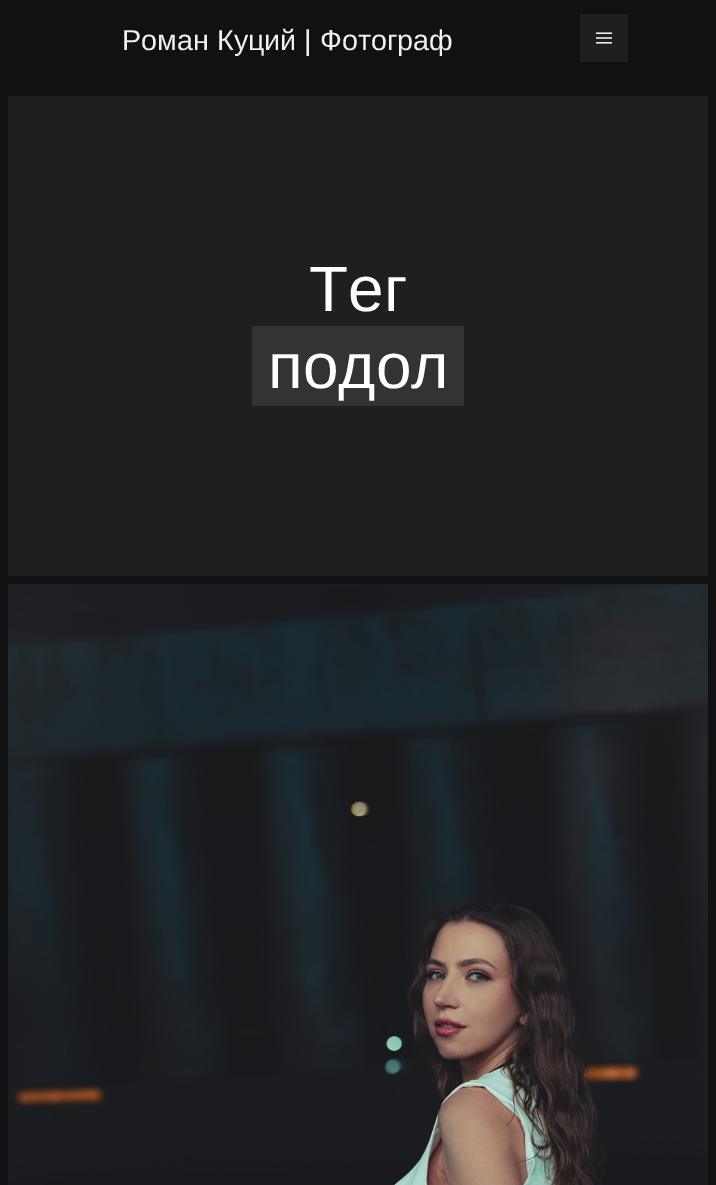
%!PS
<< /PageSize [716 1185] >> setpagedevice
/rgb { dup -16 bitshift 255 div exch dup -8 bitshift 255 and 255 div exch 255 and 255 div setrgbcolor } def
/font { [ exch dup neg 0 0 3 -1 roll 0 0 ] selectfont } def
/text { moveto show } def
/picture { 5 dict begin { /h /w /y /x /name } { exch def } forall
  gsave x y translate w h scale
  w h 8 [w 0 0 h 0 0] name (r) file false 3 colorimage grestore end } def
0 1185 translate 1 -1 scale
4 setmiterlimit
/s1 { /LiberationSans-Regular 28.75 font 16#F1F1F1 rgb } def
/s2 { /LiberationSans-Regular 64 font 16#FFFFFF rgb } def
16#111111 rgb
0 0 716 1185 rectfill
s1
(Роман Куций | Фотограф) 122 50 text
16#1F1F1F rgb
580 14 48 48 rectfill
(pic1.raw) 596 32 16 12 picture
8 96 700 480 rectfill
s2
(Тег) 309 311 text
16#333333 rgb
252 326 212 80 rectfill
s2
(подол) 268 388 text
(pic2.raw) 8 584 700 601 picture
showpage
